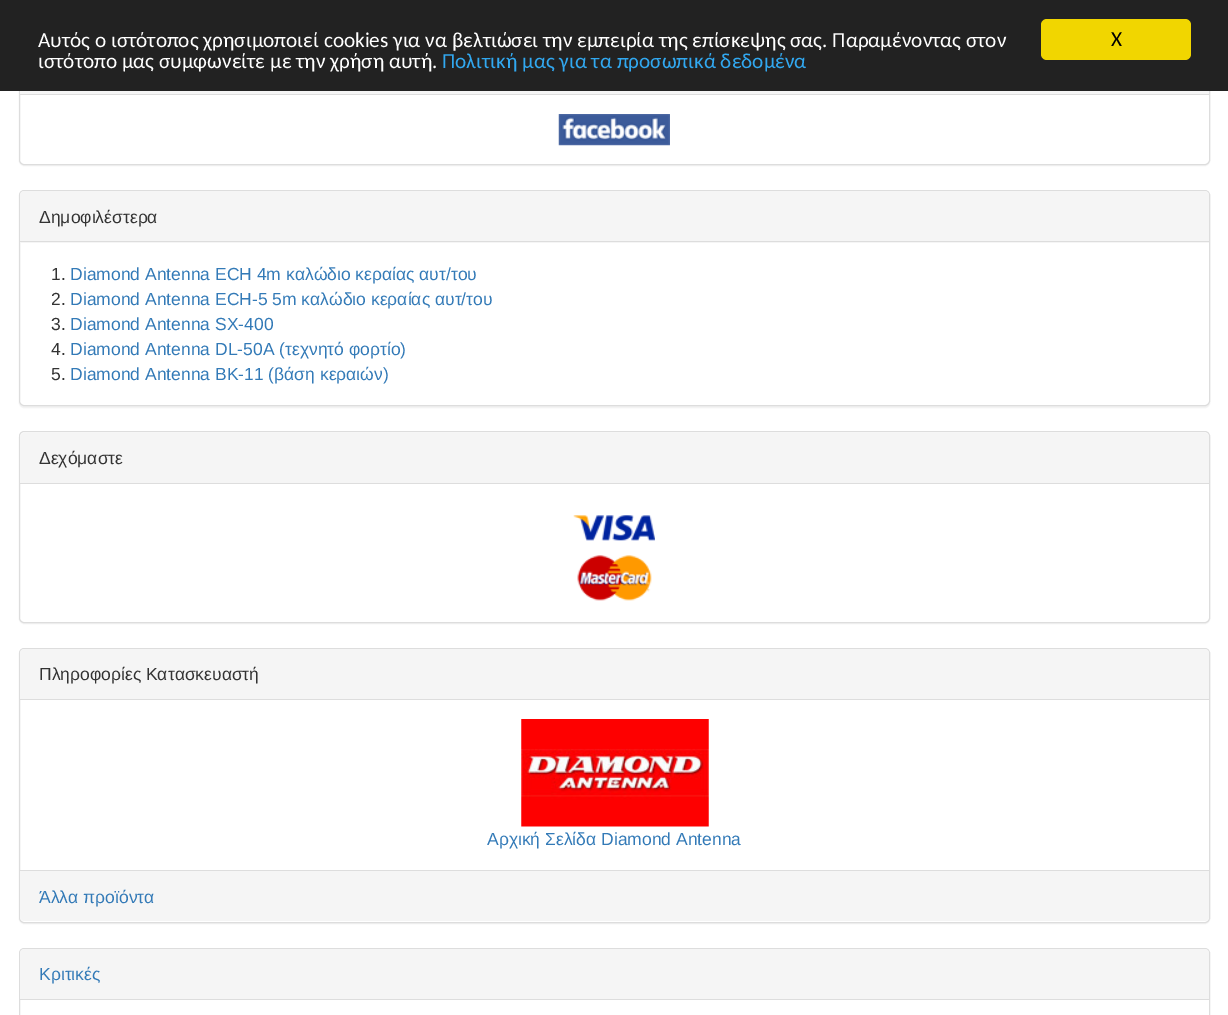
%!PS
<< /PageSize [1228 1015] /PageUsesTransparency true >> setpagedevice
/rgb { dup -16 bitshift 255 div exch dup -8 bitshift 255 and 255 div exch 255 and 255 div setrgbcolor } def
/font { [ exch dup neg 0 0 3 -1 roll 0 0 ] selectfont } def
/text { moveto show } def
/alpha { dup .setfillconstantalpha .setstrokeconstantalpha } def
/roundrect { 5 dict begin { /r /h /w /y /x } { exch def } forall
  x r add y moveto x w add y 2 copy h add r arct x w add y h add x 1 index r arct
  x y h add x y r arct x y 2 copy exch w add exch r arct closepath end } def
/shadow { 12 dict begin { /a /b /q /h /w /y /x } { exch def } forall gsave /was 0 def
  9 -2 -9 { dup b mul 4 div /e exch def 1 sub .425 mul 2.718 exch exp 1 add a .99 .min exch div /now exch def
    1 1 now sub 1 was sub div sub alpha /was now def
    w h .min e 2 mul add 0 gt { x e sub y e sub w e 2 mul add h e 2 mul add
      q e add b .6 mul add w h .min 2 div e add .min 0 .max roundrect fill } if } for grestore end } def
/picture { 5 dict begin { /h /w /y /x /name } { exch def } forall
  gsave x y translate w h scale
  w h 8 [w 0 0 h 0 0] name (r) file false 3 colorimage grestore end } def
0 .pushpdf14devicefilter
0 1015 translate 1 -1 scale
4 setmiterlimit
/s1 { /Carlito-Regular 21.25 font 16#FFFFFF rgb } def
/s2 { /Carlito-Regular 21.25 font 16#31A8F0 rgb } def
/s3 { /Carlito-Regular 21.25 font 16#000000 rgb } def
/s4 { /LiberationSans-Regular 17.5 font 16#333333 rgb } def
/s5 { /LiberationSans-Regular 17.5 font 16#337AB7 rgb } def
16#FFFFFF rgb
0 0 1228 1015 rectfill
16#000000 rgb
19 44 1191 122 5 0.5 0.05 shadow
16#FFFFFF rgb
19.5 43.5 1190 121 4.5 roundrect gsave fill grestore
16#DDDDDD rgb
stroke
16#222222 rgb
0 0 1228 91 rectfill
s1
(Αυτός ο ιστότοπος χρησιμοποιεί cookies για να βελτιώσει την εμπειρία της επίσκεψης σας. Παραμένοντας στον) 38 47 text
(ιστότοπo μας συμφωνείτε με την χρήση αυτή.) 38 68 text
s2
(Πολιτική μας για τα προσωπικά δεδομένα) 442 68 text
16#F1D600 rgb
1041 19 150 41 6 roundrect fill
s3
(X) 1111 46 text
16#F5F5F5 rgb
20 91 1189 3 rectfill
16#DDDDDD rgb
20 94 1189 1 rectfill
(pic1.raw) 558 114 112 32 picture
16#000000 rgb
19 191 1191 217 5 0.5 0.05 shadow
16#FFFFFF rgb
19.5 190.5 1190 215 4.5 roundrect gsave fill grestore
16#DDDDDD rgb
stroke
16#F5F5F5 rgb
24 191 moveto 1205 191 lineto 1207 191 1209 193 1209 195 curveto 1209 243 lineto 20 243 lineto 20 195 lineto 20 193 22 191 24 191 curveto closepath fill
16#DDDDDD rgb
20 241 1189 1 rectfill
s4
(Δημοφιλέστερα) 39 223 text
(1.) 51 280 text
s5
(Diamond Antenna ECH 4m καλώδιο κεραίας αυτ/του) 70 280 text
s4
(2.) 51 305 text
s5
(Diamond Antenna ECH-5 5m καλώδιο κεραίας αυτ/του) 70 305 text
s4
(3.) 51 330 text
s5
(Diamond Antenna SX-400) 70 330 text
s4
(4.) 51 355 text
s5
(Diamond Antenna DL-50A \(τεχνητό φορτίο\)) 70 355 text
s4
(5.) 51 380 text
s5
(Diamond Antenna BK-11 \(βάση κεραιών\)) 70 380 text
16#000000 rgb
19 433 1191 191 5 0.5 0.05 shadow
16#FFFFFF rgb
19.5 431.5 1190 191 4.5 roundrect gsave fill grestore
16#DDDDDD rgb
stroke
16#F5F5F5 rgb
24 433 moveto 1205 433 lineto 1207 433 1209 435 1209 437 curveto 1209 484 lineto 20 484 lineto 20 437 lineto 20 435 22 433 24 433 curveto closepath fill
16#DDDDDD rgb
20 483 1189 1 rectfill
s4
(Δεχόμαστε) 39 464 text
(pic2.raw) 573 515 82 26 picture
(pic3.raw) 577 555 75 46 picture
16#000000 rgb
19 649 1191 275 5 0.5 0.05 shadow
16#FFFFFF rgb
19.5 648.5 1190 274 4.5 roundrect gsave fill grestore
16#DDDDDD rgb
stroke
16#F5F5F5 rgb
24 649 moveto 1205 649 lineto 1207 649 1209 651 1209 653 curveto 1209 700 lineto 20 700 lineto 20 653 lineto 20 651 22 649 24 649 curveto closepath fill
16#DDDDDD rgb
20 699 1189 1 rectfill
s4
(Πληροφορίες Κατασκευαστή) 39 680 text
(pic4.raw) 521 719 188 108 picture
s5
(Αρχική Σελίδα Diamond Antenna) 487 845 text
16#F5F5F5 rgb
20 870 moveto 1209 870 lineto 1209 917 lineto 1209 919 1207 921 1205 921 curveto 24 921 lineto 22 921 20 919 20 917 curveto closepath fill
16#DDDDDD rgb
20 870 1189 1 rectfill
s5
(Άλλα προϊόντα) 39 903 text
16#DDDDDD rgb
19.5 948.5 1190 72 4.5 roundrect stroke
16#F5F5F5 rgb
24 949 moveto 1205 949 lineto 1207 949 1209 951 1209 953 curveto 1209 1000 lineto 20 1000 lineto 20 953 lineto 20 951 22 949 24 949 curveto closepath fill
16#DDDDDD rgb
20 999 1189 1 rectfill
s5
(Κριτικές) 39 980 text
.poppdf14devicefilter showpage
